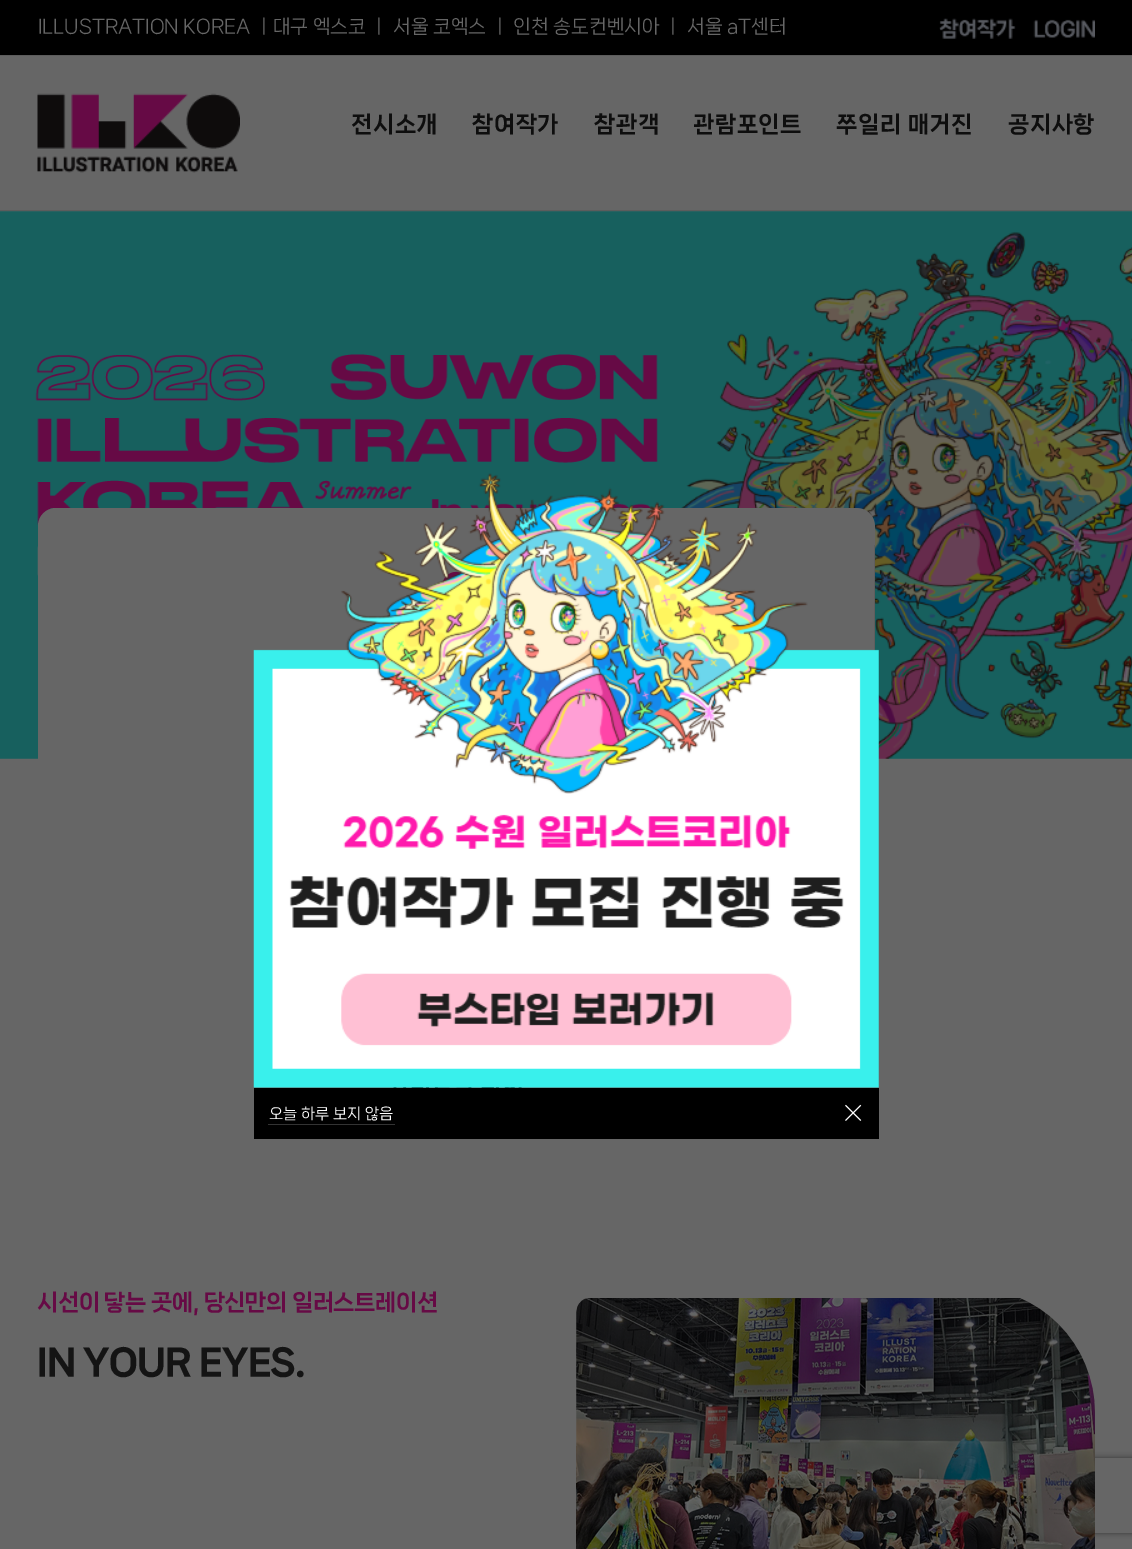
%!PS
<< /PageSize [1132 1549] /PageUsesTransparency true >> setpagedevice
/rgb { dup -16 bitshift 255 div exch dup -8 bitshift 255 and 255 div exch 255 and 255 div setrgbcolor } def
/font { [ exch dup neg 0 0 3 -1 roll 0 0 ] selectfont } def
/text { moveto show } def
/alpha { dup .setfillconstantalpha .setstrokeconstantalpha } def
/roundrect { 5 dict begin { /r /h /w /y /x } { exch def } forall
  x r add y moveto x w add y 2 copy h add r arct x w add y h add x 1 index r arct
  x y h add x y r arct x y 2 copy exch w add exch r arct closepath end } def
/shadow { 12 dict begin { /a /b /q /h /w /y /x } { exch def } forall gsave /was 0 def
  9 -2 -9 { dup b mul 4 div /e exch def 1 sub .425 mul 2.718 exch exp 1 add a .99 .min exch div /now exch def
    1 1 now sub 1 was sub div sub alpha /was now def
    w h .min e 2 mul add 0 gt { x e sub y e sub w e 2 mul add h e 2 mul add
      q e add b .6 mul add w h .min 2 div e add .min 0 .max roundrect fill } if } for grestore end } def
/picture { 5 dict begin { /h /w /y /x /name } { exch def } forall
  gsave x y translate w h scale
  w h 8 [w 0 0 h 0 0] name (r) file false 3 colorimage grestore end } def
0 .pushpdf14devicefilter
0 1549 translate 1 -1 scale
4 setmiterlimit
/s1 { /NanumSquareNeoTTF-Regular 18.75 font 16#666666 rgb } def
/s2 { /NanumSquareNeoTTF-Regular 15 font 16#FFFFFF rgb } def
16#666666 rgb
0 0 1132 1549 rectfill
16#000000 rgb
0 0 1132 55 rectfill
16#5C5C5C rgb
0 55 1132 1 rectfill
s1
(ILLUSTRATION KOREA ㅣ대구 엑스코 ㅣ 서울 코엑스 ㅣ 인천 송도컨벤시아 ㅣ 서울 aT센터) 38 32 text
(pic1.raw) 939 18 156 21 picture
16#5C5C5C rgb
0 210 1132 1 rectfill
(pic2.raw) 37 93 203 80 picture
/NanumSquareNeoTTF-ExtraBold 22.5 font
16#0E0E0E rgb
351 131 moveto 0.5 0 (전시소개) ashow
472 131 moveto 0.5 0 (참여작가) ashow
594 131 moveto 0.5 0 (참관객) ashow
gsave
694 56 142 138 rectclip
693 131 moveto 0.5 0 (관람포인트) ashow
grestore
836 131 moveto 0.5 0 (쭈일리 매거진) ashow
1008 131 moveto 0.5 0 (공지사항) ashow
(pic3.raw) 0 211 1132 548 picture
(pic4.raw) 35 354 623 222 picture
16#666666 rgb
38 508 837 697 18 roundrect fill
16#5E5E5E rgb
874 545 1 106 rectfill
(pic5.raw) 442 571 21 12 picture
/NanumSquareNeoTTF-ExtraBold 22.4 font
16#660A45 rgb
37 1309 moveto -0.45 0 (시선이 닿는 곳에, 당신만의 일러스트레이션) ashow
/NanumSquareNeoTTF-Black 35.75 font
16#141414 rgb
37 1373 moveto -0.75 0 (IN YOUR EYES.) ashow
gsave
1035 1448 moveto 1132 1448 lineto 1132 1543 lineto 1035 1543 lineto closepath 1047.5 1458 moveto 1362.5 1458 lineto 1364 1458 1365 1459 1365 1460.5 curveto 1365 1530.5 lineto 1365 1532 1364 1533 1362.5 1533 curveto 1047.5 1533 lineto 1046 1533 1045 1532 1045 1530.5 curveto 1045 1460.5 lineto 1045 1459 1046 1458 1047.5 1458 curveto closepath eoclip newpath
16#333333 rgb
1045 1458 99 75 2.5 3 1 shadow
grestore
(pic6.raw) 576 1298 519 251 picture
(pic7.raw) 253 473 626 615 picture
16#000000 rgb
254 1088 625 51 rectfill
s2
(오늘 하루 보지 않음) 269 1118 text
16#333333 rgb
268 1124 127 1 rectfill
(pic8.raw) 845 1104 17 17 picture
.poppdf14devicefilter showpage
